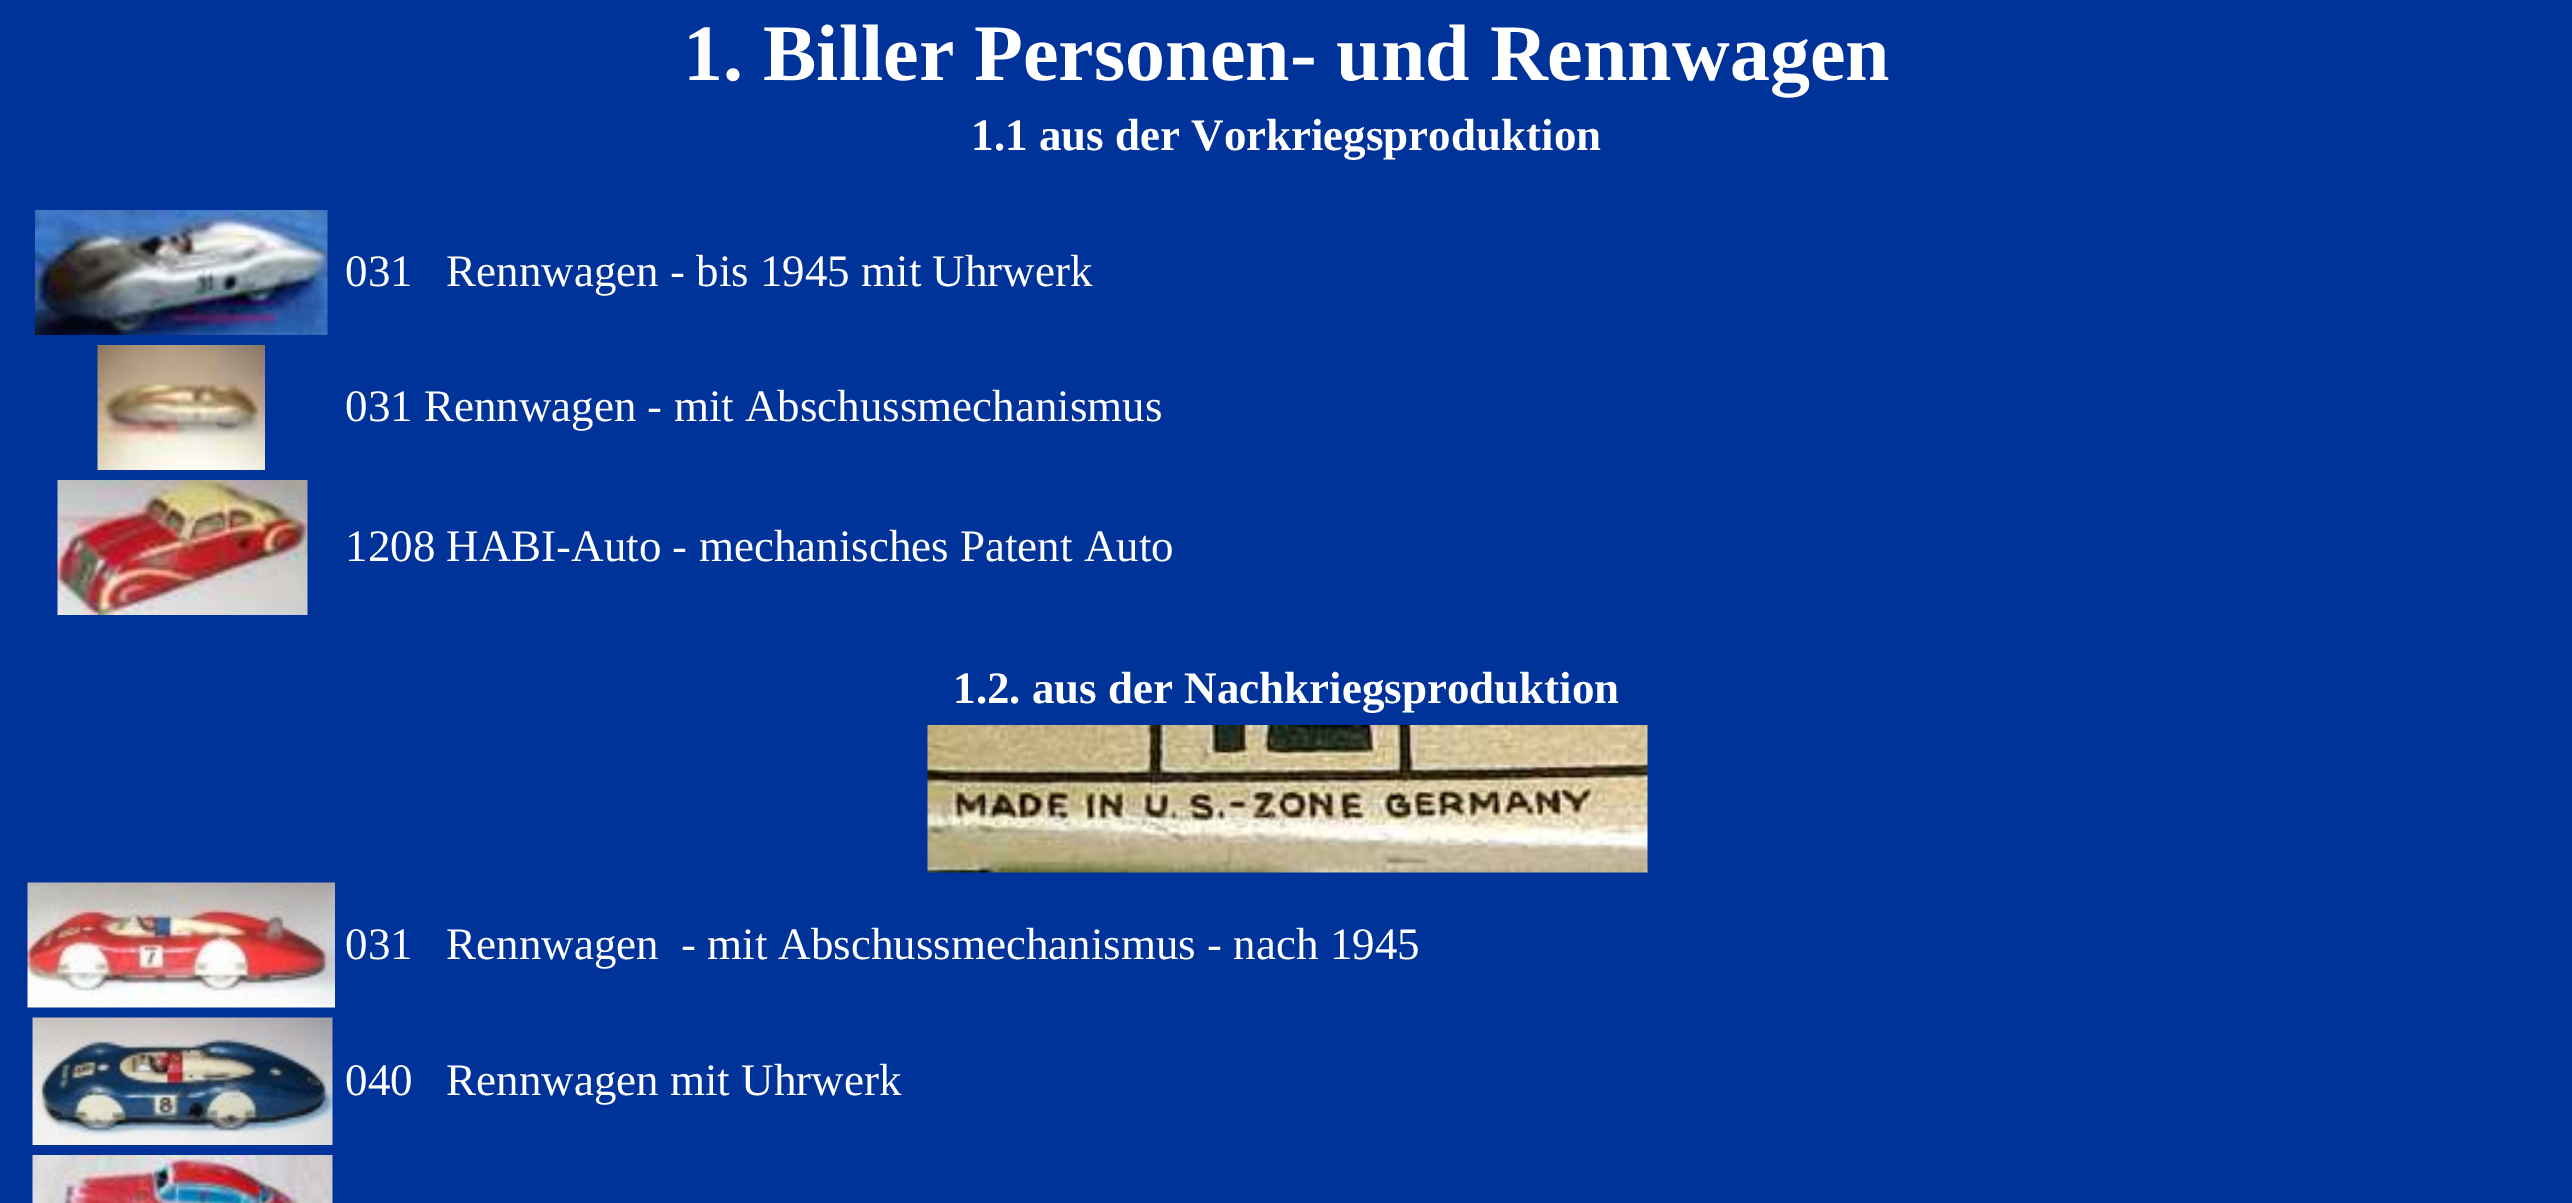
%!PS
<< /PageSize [2572 1203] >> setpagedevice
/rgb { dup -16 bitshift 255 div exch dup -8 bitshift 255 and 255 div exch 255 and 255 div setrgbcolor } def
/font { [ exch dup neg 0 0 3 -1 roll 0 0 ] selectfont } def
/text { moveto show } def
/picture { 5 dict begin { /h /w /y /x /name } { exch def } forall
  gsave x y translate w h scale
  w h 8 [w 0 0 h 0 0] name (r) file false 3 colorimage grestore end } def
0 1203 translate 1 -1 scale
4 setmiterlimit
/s1 { /LiberationSerif-Bold 80 font 16#FFFFFF rgb } def
/s2 { /LiberationSerif-Bold 45 font 16#FFFFFF rgb } def
/s3 { /LiberationSerif-Regular 45 font 16#FFFFFF rgb } def
16#003399 rgb
0 0 2572 1203 rectfill
s1
(1. Biller Personen- und Rennwagen) 683 80 text
s2
(1.1 aus der Vorkriegsproduktion) 971 150 text
(pic1.raw) 35 210 293 125 picture
s3
(031   Rennwagen - bis 1945 mit Uhrwerk) 345 286 text
(pic2.raw) 97 345 168 125 picture
(031 Rennwagen - mit Abschussmechanismus) 345 421 text
(pic3.raw) 57 480 251 135 picture
(1208 HABI-Auto - mechanisches Patent Auto) 345 561 text
s2
(1.2. aus der Nachkriegsproduktion) 953 703 text
(pic4.raw) 927 725 721 148 picture
(pic5.raw) 27 882 308 126 picture
s3
(031   Rennwagen) 345 959 text
(- mit Abschussmechanismus - nach 1945) 681 959 text
(pic6.raw) 32 1017 301 128 picture
(040   Rennwagen mit Uhrwerk) 345 1095 text
(pic7.raw) 32 1155 301 48 picture
showpage
